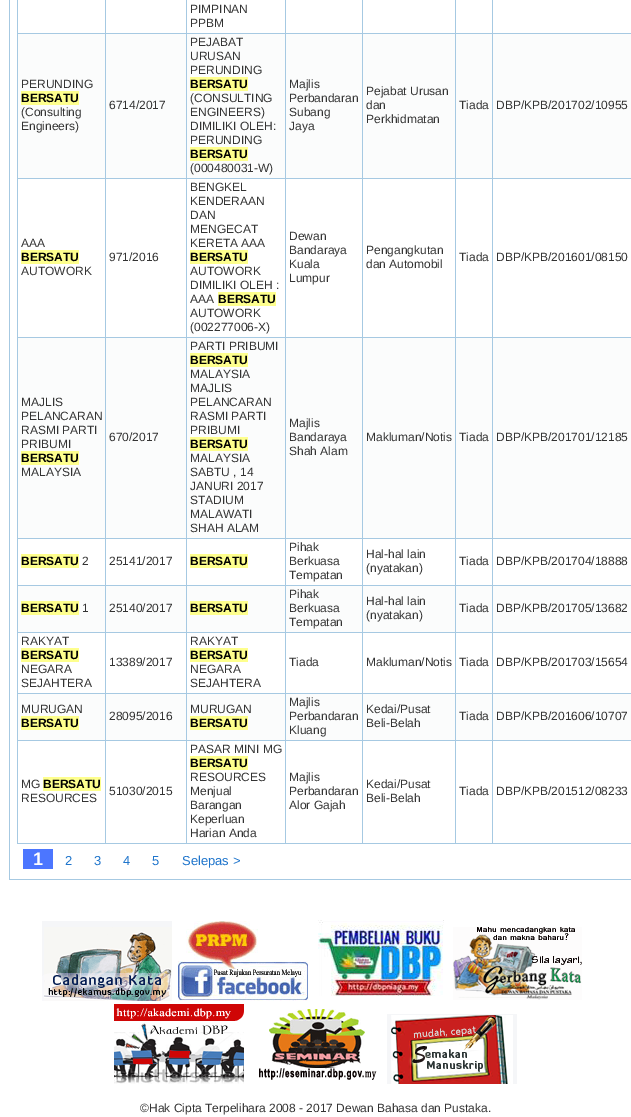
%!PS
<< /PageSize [631 1117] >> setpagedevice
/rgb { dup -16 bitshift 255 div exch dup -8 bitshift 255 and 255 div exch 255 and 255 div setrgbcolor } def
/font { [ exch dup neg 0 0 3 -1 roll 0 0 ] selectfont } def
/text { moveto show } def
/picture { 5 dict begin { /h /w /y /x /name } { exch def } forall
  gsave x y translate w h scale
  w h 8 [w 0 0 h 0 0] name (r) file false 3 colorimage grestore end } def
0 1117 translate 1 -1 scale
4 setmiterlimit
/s1 { /LiberationSans-Regular 12 font 16#333333 rgb } def
/s2 { /LiberationSans-Bold 12 font 16#000000 rgb } def
/s3 { /LiberationSans-Bold 18 font 16#FFFFFF rgb } def
/s4 { /LiberationSans-Regular 13 font 16#1F75CC rgb } def
16#FFFFFF rgb
0 0 631 1117 rectfill
16#A6C9E2 rgb
9 879 622 1 rectfill
9 0 1 880 rectfill
17 843 614 1 rectfill
17 0 1 844 rectfill
492 33 139 1 rectfill
492 178 139 1 rectfill
492 337 139 1 rectfill
492 538 139 1 rectfill
492 585 139 1 rectfill
492 632 139 1 rectfill
492 693 139 1 rectfill
492 740 139 1 rectfill
492 740 1 104 rectfill
455 740 38 1 rectfill
492 693 1 48 rectfill
455 693 38 1 rectfill
492 632 1 62 rectfill
455 632 38 1 rectfill
492 585 1 48 rectfill
455 585 38 1 rectfill
492 538 1 48 rectfill
455 538 38 1 rectfill
492 337 1 202 rectfill
455 337 38 1 rectfill
492 178 1 160 rectfill
455 178 38 1 rectfill
492 33 1 146 rectfill
455 33 38 1 rectfill
455 740 1 104 rectfill
362 740 94 1 rectfill
455 693 1 48 rectfill
362 693 94 1 rectfill
455 632 1 62 rectfill
362 632 94 1 rectfill
455 585 1 48 rectfill
362 585 94 1 rectfill
455 538 1 48 rectfill
362 538 94 1 rectfill
455 337 1 202 rectfill
362 337 94 1 rectfill
455 178 1 160 rectfill
362 178 94 1 rectfill
455 33 1 146 rectfill
362 33 94 1 rectfill
362 740 1 104 rectfill
285 740 78 1 rectfill
362 693 1 48 rectfill
285 693 78 1 rectfill
362 632 1 62 rectfill
285 632 78 1 rectfill
362 585 1 48 rectfill
285 585 78 1 rectfill
362 538 1 48 rectfill
285 538 78 1 rectfill
362 337 1 202 rectfill
285 337 78 1 rectfill
362 178 1 160 rectfill
285 178 78 1 rectfill
362 33 1 146 rectfill
285 33 78 1 rectfill
285 740 1 104 rectfill
186 740 100 1 rectfill
285 693 1 48 rectfill
186 693 100 1 rectfill
285 632 1 62 rectfill
186 632 100 1 rectfill
285 585 1 48 rectfill
186 585 100 1 rectfill
285 538 1 48 rectfill
186 538 100 1 rectfill
285 337 1 202 rectfill
186 337 100 1 rectfill
285 178 1 160 rectfill
186 178 100 1 rectfill
285 33 1 146 rectfill
186 33 100 1 rectfill
186 740 1 104 rectfill
105 740 82 1 rectfill
186 693 1 48 rectfill
105 693 82 1 rectfill
186 632 1 62 rectfill
105 632 82 1 rectfill
186 585 1 48 rectfill
105 585 82 1 rectfill
186 538 1 48 rectfill
105 538 82 1 rectfill
186 337 1 202 rectfill
105 337 82 1 rectfill
186 178 1 160 rectfill
105 178 82 1 rectfill
186 33 1 146 rectfill
105 33 82 1 rectfill
105 740 1 104 rectfill
17 740 89 1 rectfill
105 693 1 48 rectfill
17 693 89 1 rectfill
105 632 1 62 rectfill
17 632 89 1 rectfill
105 585 1 48 rectfill
17 585 89 1 rectfill
105 538 1 48 rectfill
17 538 89 1 rectfill
105 337 1 202 rectfill
17 337 89 1 rectfill
105 178 1 160 rectfill
17 178 89 1 rectfill
105 33 1 146 rectfill
17 33 89 1 rectfill
105 0 1 34 rectfill
186 0 1 34 rectfill
s1
(PIMPINAN) 190 13 text
(PPBM) 190 27 text
16#A6C9E2 rgb
285 0 1 34 rectfill
362 0 1 34 rectfill
455 0 1 34 rectfill
492 0 1 34 rectfill
16#FBFCFC rgb
18 34 87 144 rectfill
s1
(PERUNDING) 21 88 text
16#FEFF8D rgb
21 91 58 14 rectfill
s2
(BERSATU) 21 102 text
s1
(\(Consulting) 21 116 text
(Engineers\)) 21 130 text
16#FBFCFC rgb
106 34 80 144 rectfill
s1
(6714/2017) 109 109 text
16#FBFCFC rgb
187 34 98 144 rectfill
s1
(PEJABAT) 190 46 text
(URUSAN) 190 60 text
(PERUNDING) 190 74 text
16#FEFF8D rgb
190 77 58 14 rectfill
s2
(BERSATU) 190 88 text
s1
(\(CONSULTING) 190 102 text
(ENGINEERS\)) 190 116 text
(DIMILIKI OLEH:) 190 130 text
(PERUNDING) 190 144 text
16#FEFF8D rgb
190 147 58 14 rectfill
s2
(BERSATU) 190 158 text
s1
(\(000480031-W\)) 190 172 text
16#FBFCFC rgb
286 34 76 144 rectfill
s1
(Majlis) 289 88 text
(Perbandaran) 289 102 text
(Subang) 289 116 text
(Jaya) 289 130 text
16#FBFCFC rgb
363 34 92 144 rectfill
s1
(Pejabat Urusan) 366 95 text
(dan) 366 109 text
(Perkhidmatan) 366 123 text
16#FBFCFC rgb
456 34 36 144 rectfill
s1
(Tiada) 459 109 text
16#FBFCFC rgb
493 34 138 144 rectfill
s1
(DBP/KPB/201702/10955) 496 109 text
(AAA) 21 247 text
16#FEFF8D rgb
21 250 58 14 rectfill
s2
(BERSATU) 21 261 text
s1
(AUTOWORK) 21 275 text
(971/2016) 109 261 text
(BENGKEL) 190 191 text
(KENDERAAN) 190 205 text
(DAN) 190 219 text
(MENGECAT) 190 233 text
(KERETA AAA) 190 247 text
16#FEFF8D rgb
190 250 58 14 rectfill
s2
(BERSATU) 190 261 text
s1
(AUTOWORK) 190 275 text
(DIMILIKI OLEH :) 190 289 text
(AAA) 190 303 text
16#FEFF8D rgb
218 292 58 14 rectfill
s2
(BERSATU) 218 303 text
s1
(AUTOWORK) 190 317 text
(\(002277006-X\)) 190 331 text
(Dewan) 289 240 text
(Bandaraya) 289 254 text
(Kuala) 289 268 text
(Lumpur) 289 282 text
(Pengangkutan) 366 254 text
(dan Automobil) 366 268 text
(Tiada) 459 261 text
(DBP/KPB/201601/08150) 496 261 text
16#FBFCFC rgb
18 338 87 200 rectfill
s1
(MAJLIS) 21 406 text
(PELANCARAN) 21 420 text
(RASMI PARTI) 21 434 text
(PRIBUMI) 21 448 text
16#FEFF8D rgb
21 451 58 14 rectfill
s2
(BERSATU) 21 462 text
s1
(MALAYSIA) 21 476 text
16#FBFCFC rgb
106 338 80 200 rectfill
s1
(670/2017) 109 441 text
16#FBFCFC rgb
187 338 98 200 rectfill
s1
(PARTI PRIBUMI) 190 350 text
16#FEFF8D rgb
190 353 58 14 rectfill
s2
(BERSATU) 190 364 text
s1
(MALAYSIA) 190 378 text
(MAJLIS) 190 392 text
(PELANCARAN) 190 406 text
(RASMI PARTI) 190 420 text
(PRIBUMI) 190 434 text
16#FEFF8D rgb
190 437 58 14 rectfill
s2
(BERSATU) 190 448 text
s1
(MALAYSIA) 190 462 text
(SABTU , 14) 190 476 text
(JANURI 2017) 190 490 text
(STADIUM) 190 504 text
(MALAWATI) 190 518 text
(SHAH ALAM) 190 532 text
16#FBFCFC rgb
286 338 76 200 rectfill
s1
(Majlis) 289 427 text
(Bandaraya) 289 441 text
(Shah Alam) 289 455 text
16#FBFCFC rgb
363 338 92 200 rectfill
s1
(Makluman/Notis) 366 441 text
16#FBFCFC rgb
456 338 36 200 rectfill
s1
(Tiada) 459 441 text
16#FBFCFC rgb
493 338 138 200 rectfill
s1
(DBP/KPB/201701/12185) 496 441 text
16#FEFF8D rgb
21 554 58 14 rectfill
s2
(BERSATU) 21 565 text
s1
(2) 82 565 text
(25141/2017) 109 565 text
16#FEFF8D rgb
190 554 58 14 rectfill
s2
(BERSATU) 190 565 text
s1
(Pihak) 289 551 text
(Berkuasa) 289 565 text
(Tempatan) 289 579 text
(Hal-hal lain) 366 558 text
(\(nyatakan\)) 366 572 text
(Tiada) 459 565 text
(DBP/KPB/201704/18888) 496 565 text
16#FBFCFC rgb
18 586 87 46 rectfill
16#FEFF8D rgb
21 601 58 14 rectfill
s2
(BERSATU) 21 612 text
s1
(1) 82 612 text
16#FBFCFC rgb
106 586 80 46 rectfill
s1
(25140/2017) 109 612 text
16#FBFCFC rgb
187 586 98 46 rectfill
16#FEFF8D rgb
190 601 58 14 rectfill
s2
(BERSATU) 190 612 text
16#FBFCFC rgb
286 586 76 46 rectfill
s1
(Pihak) 289 598 text
(Berkuasa) 289 612 text
(Tempatan) 289 626 text
16#FBFCFC rgb
363 586 92 46 rectfill
s1
(Hal-hal lain) 366 605 text
(\(nyatakan\)) 366 619 text
16#FBFCFC rgb
456 586 36 46 rectfill
s1
(Tiada) 459 612 text
16#FBFCFC rgb
493 586 138 46 rectfill
s1
(DBP/KPB/201705/13682) 496 612 text
(RAKYAT) 21 645 text
16#FEFF8D rgb
21 648 58 14 rectfill
s2
(BERSATU) 21 659 text
s1
(NEGARA) 21 673 text
(SEJAHTERA) 21 687 text
(13389/2017) 109 666 text
(RAKYAT) 190 645 text
16#FEFF8D rgb
190 648 58 14 rectfill
s2
(BERSATU) 190 659 text
s1
(NEGARA) 190 673 text
(SEJAHTERA) 190 687 text
(Tiada) 289 666 text
(Makluman/Notis) 366 666 text
(Tiada) 459 666 text
(DBP/KPB/201703/15654) 496 666 text
16#FBFCFC rgb
18 694 87 46 rectfill
s1
(MURUGAN) 21 713 text
16#FEFF8D rgb
21 716 58 14 rectfill
s2
(BERSATU) 21 727 text
16#FBFCFC rgb
106 694 80 46 rectfill
s1
(28095/2016) 109 720 text
16#FBFCFC rgb
187 694 98 46 rectfill
s1
(MURUGAN) 190 713 text
16#FEFF8D rgb
190 716 58 14 rectfill
s2
(BERSATU) 190 727 text
16#FBFCFC rgb
286 694 76 46 rectfill
s1
(Majlis) 289 706 text
(Perbandaran) 289 720 text
(Kluang) 289 734 text
16#FBFCFC rgb
363 694 92 46 rectfill
s1
(Kedai/Pusat) 366 713 text
(Beli-Belah) 366 727 text
16#FBFCFC rgb
456 694 36 46 rectfill
s1
(Tiada) 459 720 text
16#FBFCFC rgb
493 694 138 46 rectfill
s1
(DBP/KPB/201606/10707) 496 720 text
(MG) 21 788 text
16#FEFF8D rgb
43 777 58 14 rectfill
s2
(BERSATU) 43 788 text
s1
(RESOURCES) 21 802 text
(51030/2015) 109 795 text
(PASAR MINI MG) 190 753 text
16#FEFF8D rgb
190 756 58 14 rectfill
s2
(BERSATU) 190 767 text
s1
(RESOURCES) 190 781 text
(Menjual) 190 795 text
(Barangan) 190 809 text
(Keperluan) 190 823 text
(Harian Anda) 190 837 text
(Majlis) 289 781 text
(Perbandaran) 289 795 text
(Alor Gajah) 289 809 text
(Kedai/Pusat) 366 788 text
(Beli-Belah) 366 802 text
(Tiada) 459 795 text
(DBP/KPB/201512/08233) 496 795 text
16#4C76FF rgb
23 849 30 20 rectfill
s3
(1) 33 865 text
s4
(2) 65 865 text
(3) 94 865 text
(4) 123 865 text
(5) 152 865 text
(Selepas >) 182 865 text
(pic1.raw) 42 921 130 80 picture
(pic2.raw) 178 921 130 80 picture
(pic3.raw) 318 920 126 76 picture
(pic4.raw) 453 927 129 73 picture
(pic5.raw) 114 1004 130 80 picture
(pic6.raw) 259 1009 118 71 picture
(pic7.raw) 387 1014 130 70 picture
s1
(©Hak Cipta Terpelihara 2008 - 2017 Dewan Bahasa dan Pustaka.) 140 1112 text
showpage
